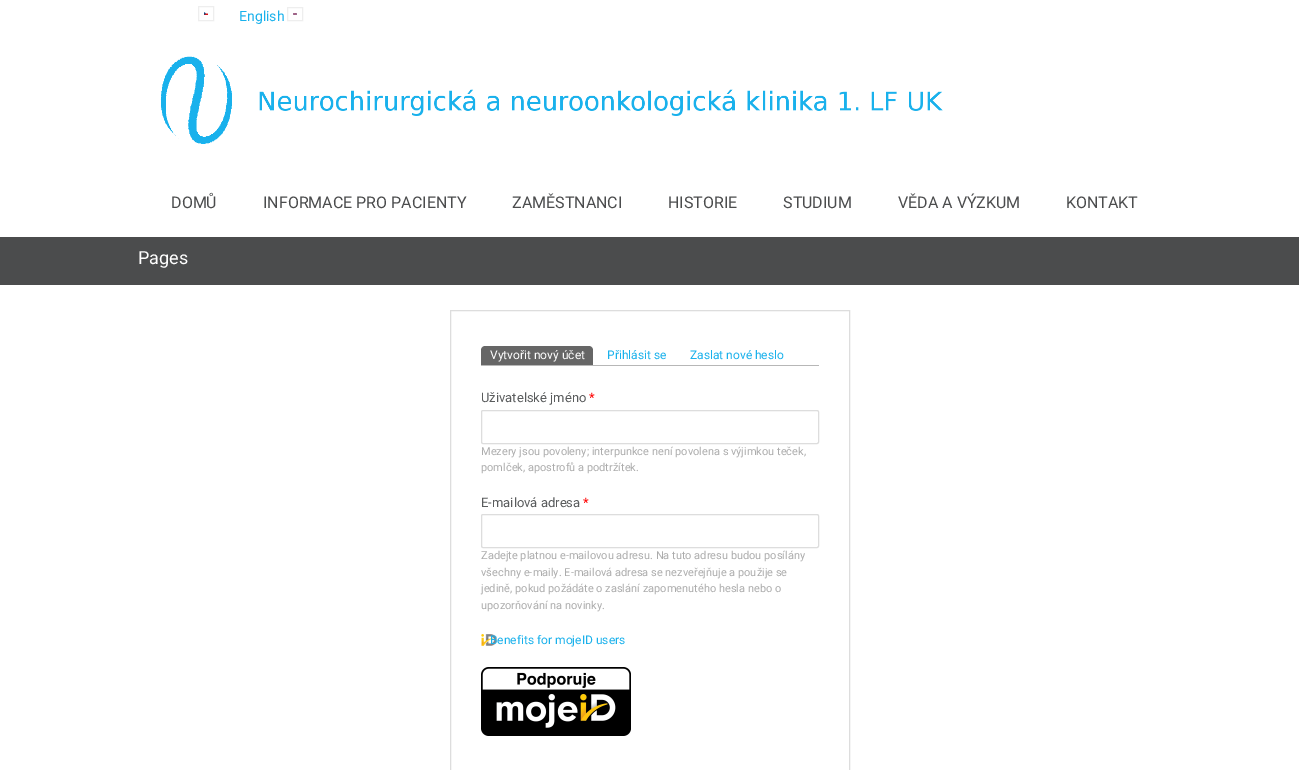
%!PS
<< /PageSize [1299 770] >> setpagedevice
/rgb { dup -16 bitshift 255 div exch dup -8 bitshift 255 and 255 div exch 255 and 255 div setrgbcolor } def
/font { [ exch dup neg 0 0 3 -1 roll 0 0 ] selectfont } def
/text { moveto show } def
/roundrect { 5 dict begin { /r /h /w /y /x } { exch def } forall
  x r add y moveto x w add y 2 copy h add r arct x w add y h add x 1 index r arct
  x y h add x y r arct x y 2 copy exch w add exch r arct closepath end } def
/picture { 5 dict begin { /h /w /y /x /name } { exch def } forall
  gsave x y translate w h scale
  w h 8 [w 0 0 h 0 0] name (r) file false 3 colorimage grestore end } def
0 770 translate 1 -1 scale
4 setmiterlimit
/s1 { /Roboto-Regular 14 font 16#19B1EC rgb } def
/s2 { /Roboto-Regular 16 font 16#4B4C4D rgb } def
/s3 { /Roboto-Regular 18 font 16#FFFFFF rgb } def
/s4 { /Roboto-Regular 12 font 16#FFFFFF rgb } def
/s5 { /Roboto-Regular 12 font 16#19B1EC rgb } def
/s6 { /Roboto-Regular 13 font 16#5A5C5D rgb } def
/s7 { /Roboto-Regular 13 font 16#FF0000 rgb } def
/s8 { /Roboto-Regular 11 font 16#ACACAC rgb } def
16#FFFFFF rgb
0 0 1299 770 rectfill
16#EEEEEE rgb
198.5 6.5 15 14 rectstroke
(pic1.raw) 204 12 4 3 picture
s1
(English) 239 21 text
16#EEEEEE rgb
287.5 7.5 15 13 rectstroke
(pic2.raw) 293 13 4 2 picture
(pic3.raw) 160 56 783 88 picture
s2
(DOMŮ) 171 208 text
(INFORMACE PRO PACIENTY) 263 208 text
(ZAMĚSTNANCI) 512 208 text
(HISTORIE) 668 208 text
(STUDIUM) 783 208 text
(VĚDA A VÝZKUM) 898 208 text
(KONTAKT) 1066 208 text
0 237 1299 48 rectfill
s3
(Pages) 138 264 text
16#DDDDDD rgb
450.5 310.5 399 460 rectstroke
16#B7B7B7 rgb
481 365 338 1 rectfill
16#666666 rgb
485 346 moveto 589 346 lineto 591 346 593 348 593 350 curveto 593 365 lineto 481 365 lineto 481 350 lineto 481 348 483 346 485 346 curveto closepath fill
s4
(Vytvořit nový účet) 490 359 text
s5
(Přihlásit se) 607 359 text
(Zaslat nové heslo) 690 359 text
s6
(Uživatelské jméno) 481 402 text
s7
(*) 589 402 text
16#DDDDDD rgb
481.5 410.5 337 33 1.5 roundrect stroke
s8
(Mezery jsou povoleny; interpunkce není povolena s výjimkou teček,) 481 455 text
(pomlček, apostrofů a podtržítek.) 481 471 text
s6
(E-mailová adresa) 481 507 text
s7
(*) 583 507 text
16#DDDDDD rgb
481.5 514.5 337 33 1.5 roundrect stroke
s8
(Zadejte platnou e-mailovou adresu. Na tuto adresu budou posílány) 481 559 text
(všechny e-maily. E-mailová adresa se nezveřejňuje a použije se) 481 576 text
(jedině, pokud požádáte o zaslání zapomenutého hesla nebo o) 481 592 text
(upozorňování na novinky.) 481 609 text
(pic4.raw) 481 634 16 12 picture
s5
(Benefits for mojeID users) 490 644 text
(pic5.raw) 481 667 150 69 picture
showpage
